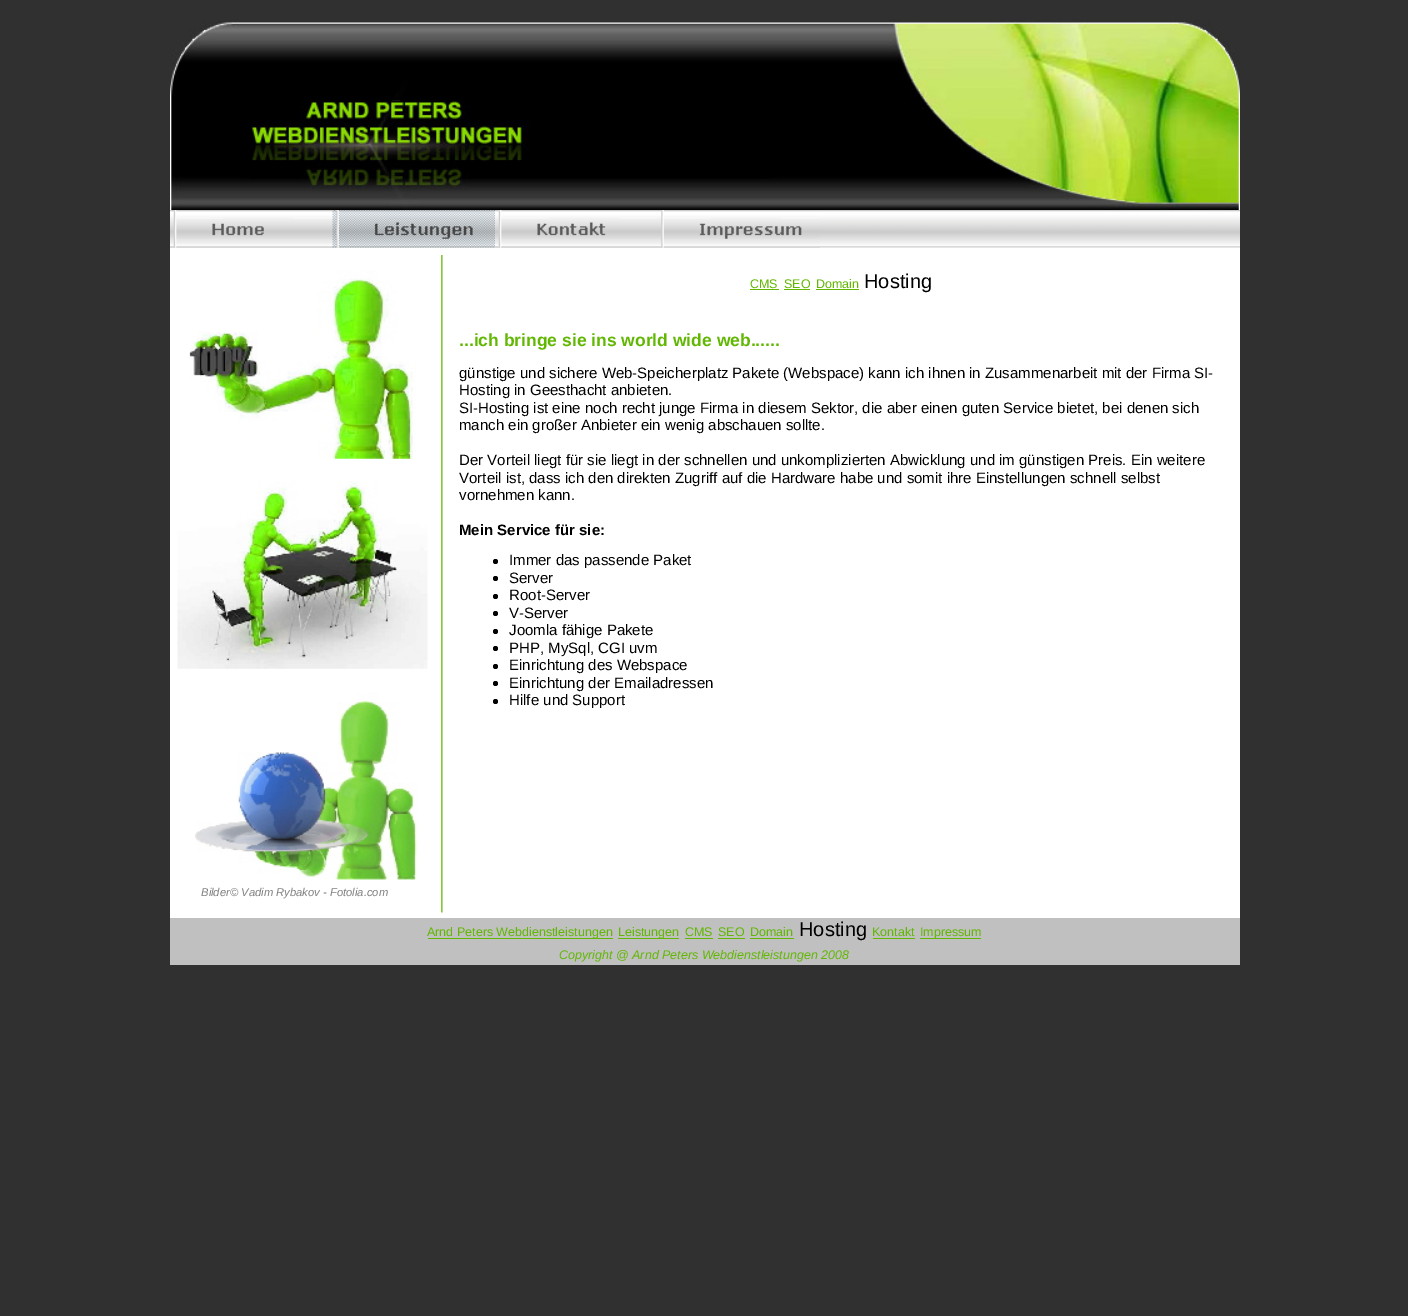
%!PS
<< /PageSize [1408 1316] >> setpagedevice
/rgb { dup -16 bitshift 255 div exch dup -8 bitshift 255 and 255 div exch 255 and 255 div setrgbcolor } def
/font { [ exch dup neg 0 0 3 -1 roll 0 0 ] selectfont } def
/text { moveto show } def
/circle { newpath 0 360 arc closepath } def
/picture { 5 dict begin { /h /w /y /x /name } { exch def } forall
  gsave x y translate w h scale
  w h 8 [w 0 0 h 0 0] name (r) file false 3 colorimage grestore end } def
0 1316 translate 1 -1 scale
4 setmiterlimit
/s1 { /LiberationSans-Regular 12.5 font 16#61B702 rgb } def
/s2 { /LiberationSans-Regular 20 font 16#000000 rgb } def
/s3 { /LiberationSans-Bold 17.5 font 16#61B702 rgb } def
/s4 { /LiberationSans-Regular 15 font 16#000000 rgb } def
/s5 { /LiberationSans-Bold 15 font 16#000000 rgb } def
/s6 { /LiberationSans-Italic 11.25 font 16#808080 rgb } def
/s7 { /LiberationSans-Italic 12.5 font 16#61B702 rgb } def
16#303030 rgb
0 0 1408 1316 rectfill
16#FFFFFF rgb
170 247 1070 671 rectfill
(pic1.raw) 170 0 1070 210 picture
(pic2.raw) 170 210 1070 38 picture
(pic3.raw) 170 210 163 38 picture
(pic4.raw) 332 210 163 38 picture
(pic5.raw) 495 210 163 38 picture
(pic6.raw) 657 210 163 38 picture
(pic7.raw) 189 271 227 188 picture
(pic8.raw) 441 255 2 658 picture
s1
(CMS) 750 288 text
750 289 29 1 rectfill
(SEO) 784 288 text
784 289 26 1 rectfill
(Domain) 816 288 text
816 289 43 1 rectfill
s2
(Hosting) 864 288 text
(pic9.raw) 177 481 251 188 picture
s3
(...ich bringe sie ins world wide web......) 459 346 text
s4
(günstige und sichere Web-Speicherplatz Pakete \(Webspace\) kann ich ihnen in Zusammenarbeit mit der Firma SI-) 459 378 text
(Hosting in Geesthacht anbieten.) 459 395 text
(SI-Hosting ist eine noch recht junge Firma in diesem Sektor, die aber einen guten Service bietet, bei denen sich) 459 413 text
(manch ein großer Anbieter ein wenig abschauen sollte.) 459 430 text
(Der Vorteil liegt für sie liegt in der schnellen und unkomplizierten Abwicklung und im günstigen Preis. Ein weitere) 459 465 text
(Vorteil ist, dass ich den direkten Zugriff auf die Hardware habe und somit ihre Einstellungen schnell selbst) 459 483 text
(vornehmen kann.) 459 500 text
s5
(Mein Service für sie:) 459 535 text
495.5 561.5 2.5 circle fill
s4
(Immer das passende Paket) 509 565 text
495.5 578.5 2.5 circle fill
(Server) 509 583 text
495.5 596.5 2.5 circle fill
(Root-Server) 509 600 text
495.5 613.5 2.5 circle fill
(V-Server) 509 618 text
495.5 631.5 2.5 circle fill
(Joomla fähige Pakete) 509 635 text
495.5 648.5 2.5 circle fill
(PHP, MySql, CGI uvm) 509 653 text
495.5 666.5 2.5 circle fill
(Einrichtung des Webspace) 509 670 text
495.5 683.5 2.5 circle fill
(Einrichtung der Emailadressen) 509 688 text
495.5 701.5 2.5 circle fill
(Hilfe und Support) 509 705 text
(pic10.raw) 195 692 223 188 picture
s6
(Bilder© Vadim Rybakov - Fotolia.com) 201 896 text
16#C0C0C0 rgb
170 918 1070 47 rectfill
16#61B702 rgb
428 938 185 1 rectfill
s1
(Arnd Peters Webdienstleistungen) 427 936 text
618 938 61 1 rectfill
(Leistungen) 618 936 text
(CMS) 685 936 text
685 938 28 1 rectfill
(SEO) 718 936 text
718 938 27 1 rectfill
(Domain) 750 936 text
750 938 44 1 rectfill
s2
(Hosting) 799 936 text
s1
(Kontakt) 872 936 text
873 938 42 1 rectfill
920 938 61 1 rectfill
(Impressum) 920 936 text
s7
(Copyright @ Arnd Peters Webdienstleistungen 2008) 559 959 text
showpage
